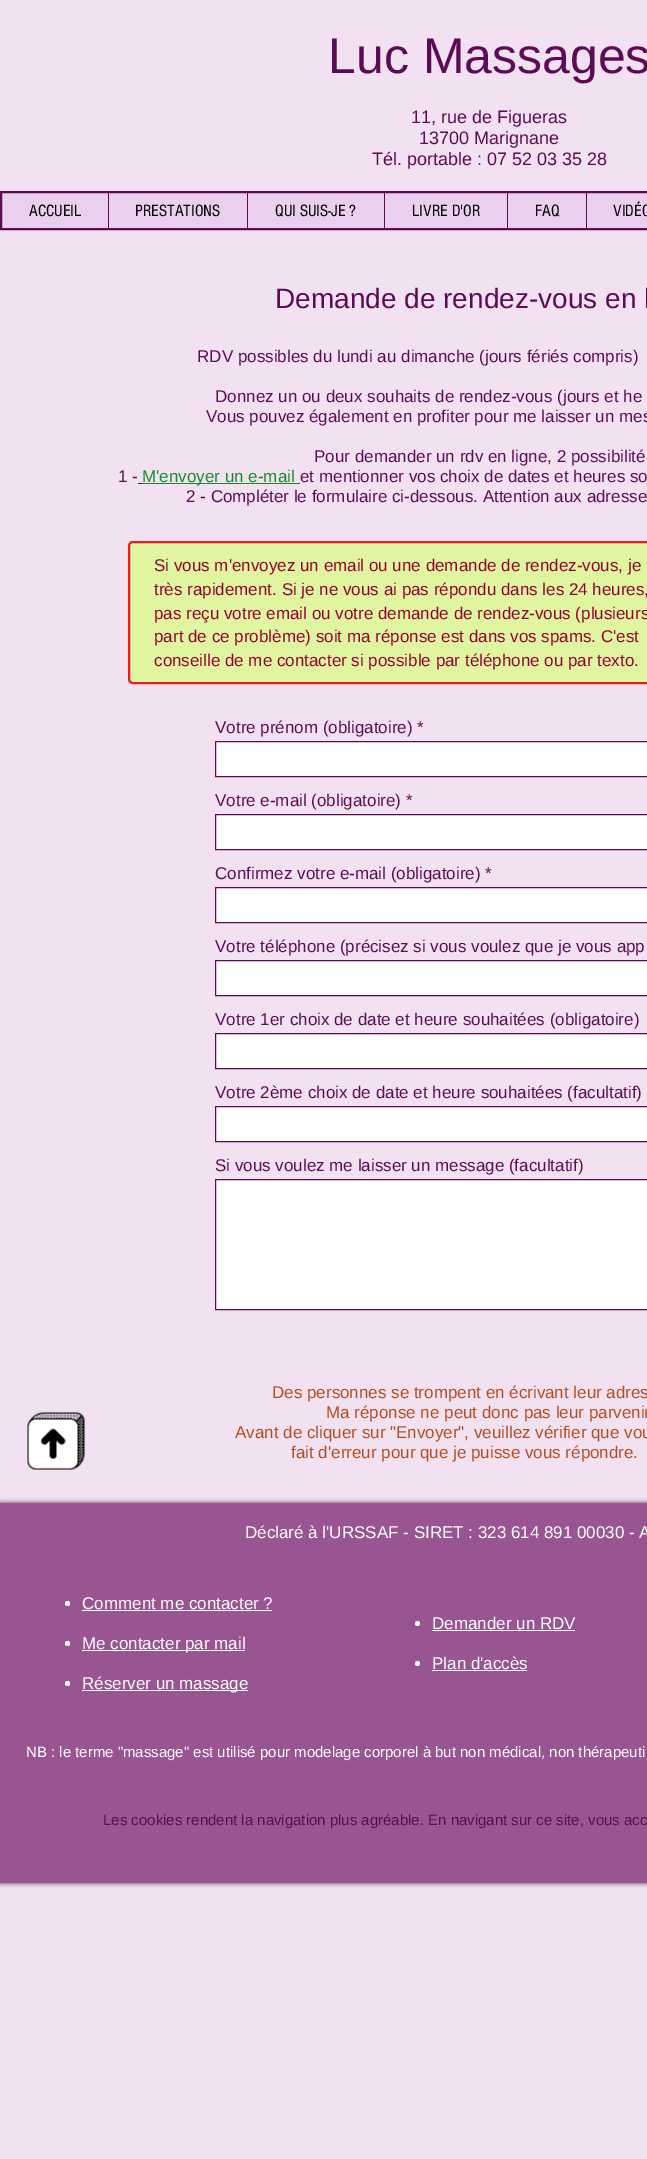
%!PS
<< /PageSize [647 2159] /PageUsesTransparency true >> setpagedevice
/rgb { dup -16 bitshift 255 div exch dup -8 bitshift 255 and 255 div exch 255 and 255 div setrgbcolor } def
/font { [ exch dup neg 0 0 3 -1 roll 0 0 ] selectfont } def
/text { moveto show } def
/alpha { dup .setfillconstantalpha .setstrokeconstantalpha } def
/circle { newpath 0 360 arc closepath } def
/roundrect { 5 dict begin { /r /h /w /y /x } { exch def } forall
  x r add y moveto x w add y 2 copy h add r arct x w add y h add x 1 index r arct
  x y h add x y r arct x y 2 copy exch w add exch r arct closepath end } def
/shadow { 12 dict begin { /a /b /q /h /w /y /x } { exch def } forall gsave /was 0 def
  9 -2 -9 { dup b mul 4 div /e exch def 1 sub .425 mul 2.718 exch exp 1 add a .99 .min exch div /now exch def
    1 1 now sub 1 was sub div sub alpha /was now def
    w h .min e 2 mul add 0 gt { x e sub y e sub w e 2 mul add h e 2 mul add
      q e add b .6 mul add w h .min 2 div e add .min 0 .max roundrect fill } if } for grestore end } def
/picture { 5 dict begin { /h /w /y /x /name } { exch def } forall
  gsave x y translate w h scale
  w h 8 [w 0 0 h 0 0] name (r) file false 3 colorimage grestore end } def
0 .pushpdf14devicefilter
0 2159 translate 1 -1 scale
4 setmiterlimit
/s1 { /LiberationSans-Regular 50 font 16#5C0C54 rgb } def
/s2 { /LiberationSans-Regular 18 font 16#5C0C54 rgb } def
/s3 { /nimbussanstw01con-Regular 17 font 16#000000 rgb } def
/s4 { /LiberationSans-Regular 28 font 16#5C0C54 rgb } def
/s5 { /LiberationSans-Regular 17 font 16#5C0C54 rgb } def
/s6 { /LiberationSans-Regular 17 font 16#158B2F rgb } def
/s7 { /LiberationSans-Regular 17 font 16#950032 rgb } def
/s8 { /LiberationSans-Regular 17 font 16#B54C1F rgb } def
/s9 { /LiberationSans-Regular 17 font 16#FFFFFF rgb } def
/s10 { /LiberationSans-Regular 15 font 16#FFFFFF rgb } def
/s11 { /LiberationSans-Regular 15 font 16#5C0C54 rgb } def
16#F2E1F0 rgb
0 0 647 2159 rectfill
s1
(Luc Massages) 328 73 text
s2
(11, rue de Figueras) 411 123 text
(13700 Marignane) 419 144 text
(Tél. portable : 07 52 03 35 28) 372 165 text
16#EACFEE rgb
1 192 moveto 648 192 lineto 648 229 lineto 1 229 lineto closepath gsave fill grestore
16#5C0C54 rgb
2 setlinewidth
stroke
s3
(ACCUEIL) 29 216 text
16#5C0C54 rgb
108 193 1 35 rectfill
s3
(PRESTATIONS) 135 216 text
16#5C0C54 rgb
247 193 1 35 rectfill
s3
(QUI SUIS-JE ?) 275 216 text
16#5C0C54 rgb
384 193 1 35 rectfill
s3
(LIVRE D'OR) 412 216 text
16#5C0C54 rgb
507 193 1 35 rectfill
s3
(FAQ) 535 216 text
16#5C0C54 rgb
586 193 1 35 rectfill
s3
(VIDÉO) 613 216 text
s4
(Demande de rendez-vous en l) 275 308 text
s5
(RDV possibles du lundi au dimanche \(jours fériés compris\)) 197 362 text
(Donnez un ou deux souhaits de rendez-vous \(jours et he) 215 402 text
(Vous pouvez également en profiter pour me laisser un mes) 206 422 text
(Pour demander un rdv en ligne, 2 possibilité) 314 462 text
(1 -) 118 482 text
16#158B2F rgb
142 483 158 1 rectfill
(M'envoyer un e-mail) 142 482 text
16#5C0C54 rgb
138 483 4 1 rectfill
(et mentionner vos choix de dates et heures so) 300 482 text
(2 - Compléter le formulaire ci-dessous. Attention aux adresse) 186 502 text
16#E0F59F rgb
129 542 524 141 4 roundrect gsave fill grestore
16#ED1C24 rgb
stroke
s7
(Si vous m'envoyez un email ou une demande de rendez-vous, je) 154 571 text
(très rapidement. Si je ne vous ai pas répondu dans les 24 heures,) 154 595 text
(pas reçu votre email ou votre demande de rendez-vous \(plusieurs) 154 619 text
(part de ce problème\) soit ma réponse est dans vos spams. C'est) 154 642 text
(conseille de me contacter si possible par téléphone ou par texto.) 154 666 text
s5
(Votre prénom \(obligatoire\) *) 215 733 text
16#FFFFFF rgb
215.5 741.5 moveto 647.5 741.5 lineto 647.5 776.5 lineto 215.5 776.5 lineto closepath gsave fill grestore
16#5C0C54 rgb
1 setlinewidth
stroke
(Votre e-mail \(obligatoire\) *) 215 806 text
16#FFFFFF rgb
215.5 814.5 moveto 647.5 814.5 lineto 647.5 849.5 lineto 215.5 849.5 lineto closepath gsave fill grestore
16#5C0C54 rgb
stroke
(Confirmez votre e-mail \(obligatoire\) *) 215 879 text
16#FFFFFF rgb
215.5 887.5 moveto 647.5 887.5 lineto 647.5 922.5 lineto 215.5 922.5 lineto closepath gsave fill grestore
16#5C0C54 rgb
stroke
(Votre téléphone \(précisez si vous voulez que je vous app) 215 952 text
16#FFFFFF rgb
215.5 960.5 moveto 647.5 960.5 lineto 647.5 995.5 lineto 215.5 995.5 lineto closepath gsave fill grestore
16#5C0C54 rgb
stroke
(Votre 1er choix de date et heure souhaitées \(obligatoire\)) 215 1025 text
16#FFFFFF rgb
215.5 1033.5 moveto 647.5 1033.5 lineto 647.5 1068.5 lineto 215.5 1068.5 lineto closepath gsave fill grestore
16#5C0C54 rgb
stroke
(Votre 2ème choix de date et heure souhaitées \(facultatif\)) 215 1098 text
16#FFFFFF rgb
215.5 1106.5 moveto 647.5 1106.5 lineto 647.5 1141.5 lineto 215.5 1141.5 lineto closepath gsave fill grestore
16#5C0C54 rgb
stroke
(Si vous voulez me laisser un message \(facultatif\)) 215 1171 text
16#FFFFFF rgb
215.5 1179.5 moveto 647.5 1179.5 lineto 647.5 1309.5 lineto 215.5 1309.5 lineto closepath gsave fill grestore
16#5C0C54 rgb
stroke
(pic1.raw) 27 1412 58 58 picture
s8
(Des personnes se trompent en écrivant leur adres) 272 1398 text
(Ma réponse ne peut donc pas leur parvenir) 326 1418 text
(Avant de cliquer sur "Envoyer", veuillez vérifier que vou) 235 1438 text
(fait d'erreur pour que je puisse vous répondre.) 291 1458 text
16#000000 rgb
0 1503 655 380 0 2.5 0.7 shadow
16#995492 rgb
0 1503 647 380 rectfill
s9
(Déclaré à l'URSSAF - SIRET : 323 614 891 00030 - A) 245 1538 text
67.5 1603.5 2.5 circle fill
(Comment me contacter ?) 82 1609 text
82 1610 190 1 rectfill
67.5 1643.5 2.5 circle fill
82 1650 163 1 rectfill
(Me contacter par mail) 82 1649 text
67.5 1683.5 2.5 circle fill
82 1690 166 1 rectfill
(Réserver un massage) 82 1689 text
417.5 1623.5 2.5 circle fill
(Demander un RDV) 432 1629 text
432 1630 143 1 rectfill
417.5 1663.5 2.5 circle fill
(Plan d'accès) 432 1669 text
432 1670 95 1 rectfill
s10
(NB : le terme "massage" est utilisé pour modelage corporel à but non médical, non thérapeuti) 26 1757 text
s11
(Les cookies rendent la navigation plus agréable. En navigant sur ce site, vous acc) 103 1825 text
.poppdf14devicefilter showpage
